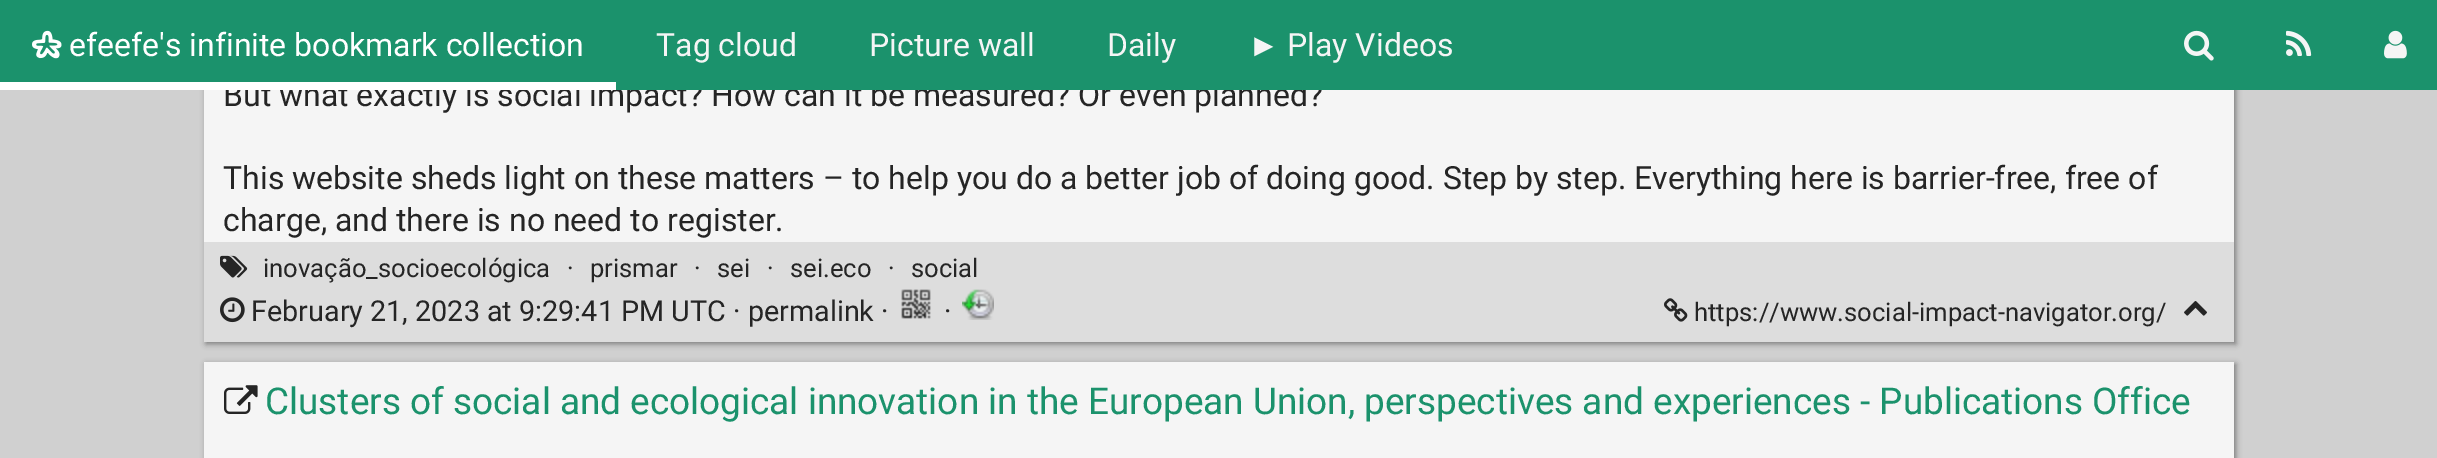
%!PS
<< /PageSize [2437 458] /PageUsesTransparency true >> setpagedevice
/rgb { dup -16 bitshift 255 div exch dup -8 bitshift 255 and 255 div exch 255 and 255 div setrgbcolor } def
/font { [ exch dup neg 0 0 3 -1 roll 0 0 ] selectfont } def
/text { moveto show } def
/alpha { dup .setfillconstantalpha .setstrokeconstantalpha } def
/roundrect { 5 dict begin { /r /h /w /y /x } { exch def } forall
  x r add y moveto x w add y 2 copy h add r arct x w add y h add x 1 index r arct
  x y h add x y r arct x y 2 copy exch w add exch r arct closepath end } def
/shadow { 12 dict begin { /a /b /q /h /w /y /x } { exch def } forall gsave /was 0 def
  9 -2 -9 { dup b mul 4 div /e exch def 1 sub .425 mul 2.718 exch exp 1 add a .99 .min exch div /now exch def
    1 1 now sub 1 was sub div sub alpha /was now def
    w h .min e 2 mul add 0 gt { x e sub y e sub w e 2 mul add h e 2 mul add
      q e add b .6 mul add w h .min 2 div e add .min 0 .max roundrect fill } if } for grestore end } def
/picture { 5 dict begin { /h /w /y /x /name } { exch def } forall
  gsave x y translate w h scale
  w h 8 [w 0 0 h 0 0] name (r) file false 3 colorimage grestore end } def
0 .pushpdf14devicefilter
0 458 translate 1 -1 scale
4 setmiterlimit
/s1 { /Roboto-Regular 32 font 16#252525 rgb } def
/s2 { /Roboto-Regular 32 font 16#FFFFFF rgb } def
/s3 { /Roboto-Regular 32 font 16#F5F5F5 rgb } def
/s4 { /LiberationSans-Regular 32 font 16#F5F5F5 rgb } def
/s5 { /Roboto-Regular 25.6 font 16#252525 rgb } def
/s6 { /Roboto-Regular 28.75 font 16#252525 rgb } def
/s7 { /Roboto-Regular 36.95 font 16#1B926C rgb } def
16#D0D0D0 rgb
0 0 2437 458 rectfill
16#797979 rgb
206 -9 2030 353 0 3 1 shadow
16#F5F5F5 rgb
204 90 2030 152 rectfill
s1
(But what exactly is social impact? How can it be measured? Or even planned?) 223 106 text
16#1B926C rgb
0 0 2437 90 rectfill
(pic1.raw) 32 30 30 29 picture
s2
(efeefe's infinite bookmark collection) 69 56 text
0 82 616 8 rectfill
s3
(Tag cloud) 656 56 text
(Picture wall) 869 56 text
(Daily) 1107 56 text
s4
(►) 1248 56 text
s3
(Play Videos) 1287 56 text
(pic2.raw) 2184 30 30 31 picture
(pic3.raw) 2286 30 26 26 picture
(pic4.raw) 2384 30 23 29 picture
s1
(This website sheds light on these matters – to help you do a better job of doing good. Step by step. Everything here is barrier-free, free of) 223 189 text
(charge, and there is no need to register.) 223 231 text
16#DDDDDD rgb
204 242 2030 100 rectfill
(pic5.raw) 220 255 28 23 picture
s5
(inovação_socioecológica) 263 277 text
(·) 567 277 text
(prismar) 590 277 text
(·) 694 277 text
(sei) 717 277 text
(·) 767 277 text
(sei.eco) 790 277 text
(·) 888 277 text
(social) 911 277 text
(pic6.raw) 220 297 25 26 picture
s6
(February 21, 2023 at 9:29:41 PM UTC) 251 321 text
(· permalink ·) 733 321 text
(pic7.raw) 901 289 30 30 picture
(·) 944 321 text
(pic8.raw) 962 289 32 31 picture
(pic9.raw) 1664 298 24 24 picture
s5
(https://www.social-impact-navigator.org/) 1694 321 text
(pic10.raw) 2184 301 23 15 picture
16#797979 rgb
206 364 2030 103 0 3 1 shadow
16#F5F5F5 rgb
204 362 2030 96 rectfill
(pic11.raw) 224 385 34 29 picture
s7
(Clusters of social and ecological innovation in the European Union, perspectives and experiences - Publications Office) 265 414 text
.poppdf14devicefilter showpage
